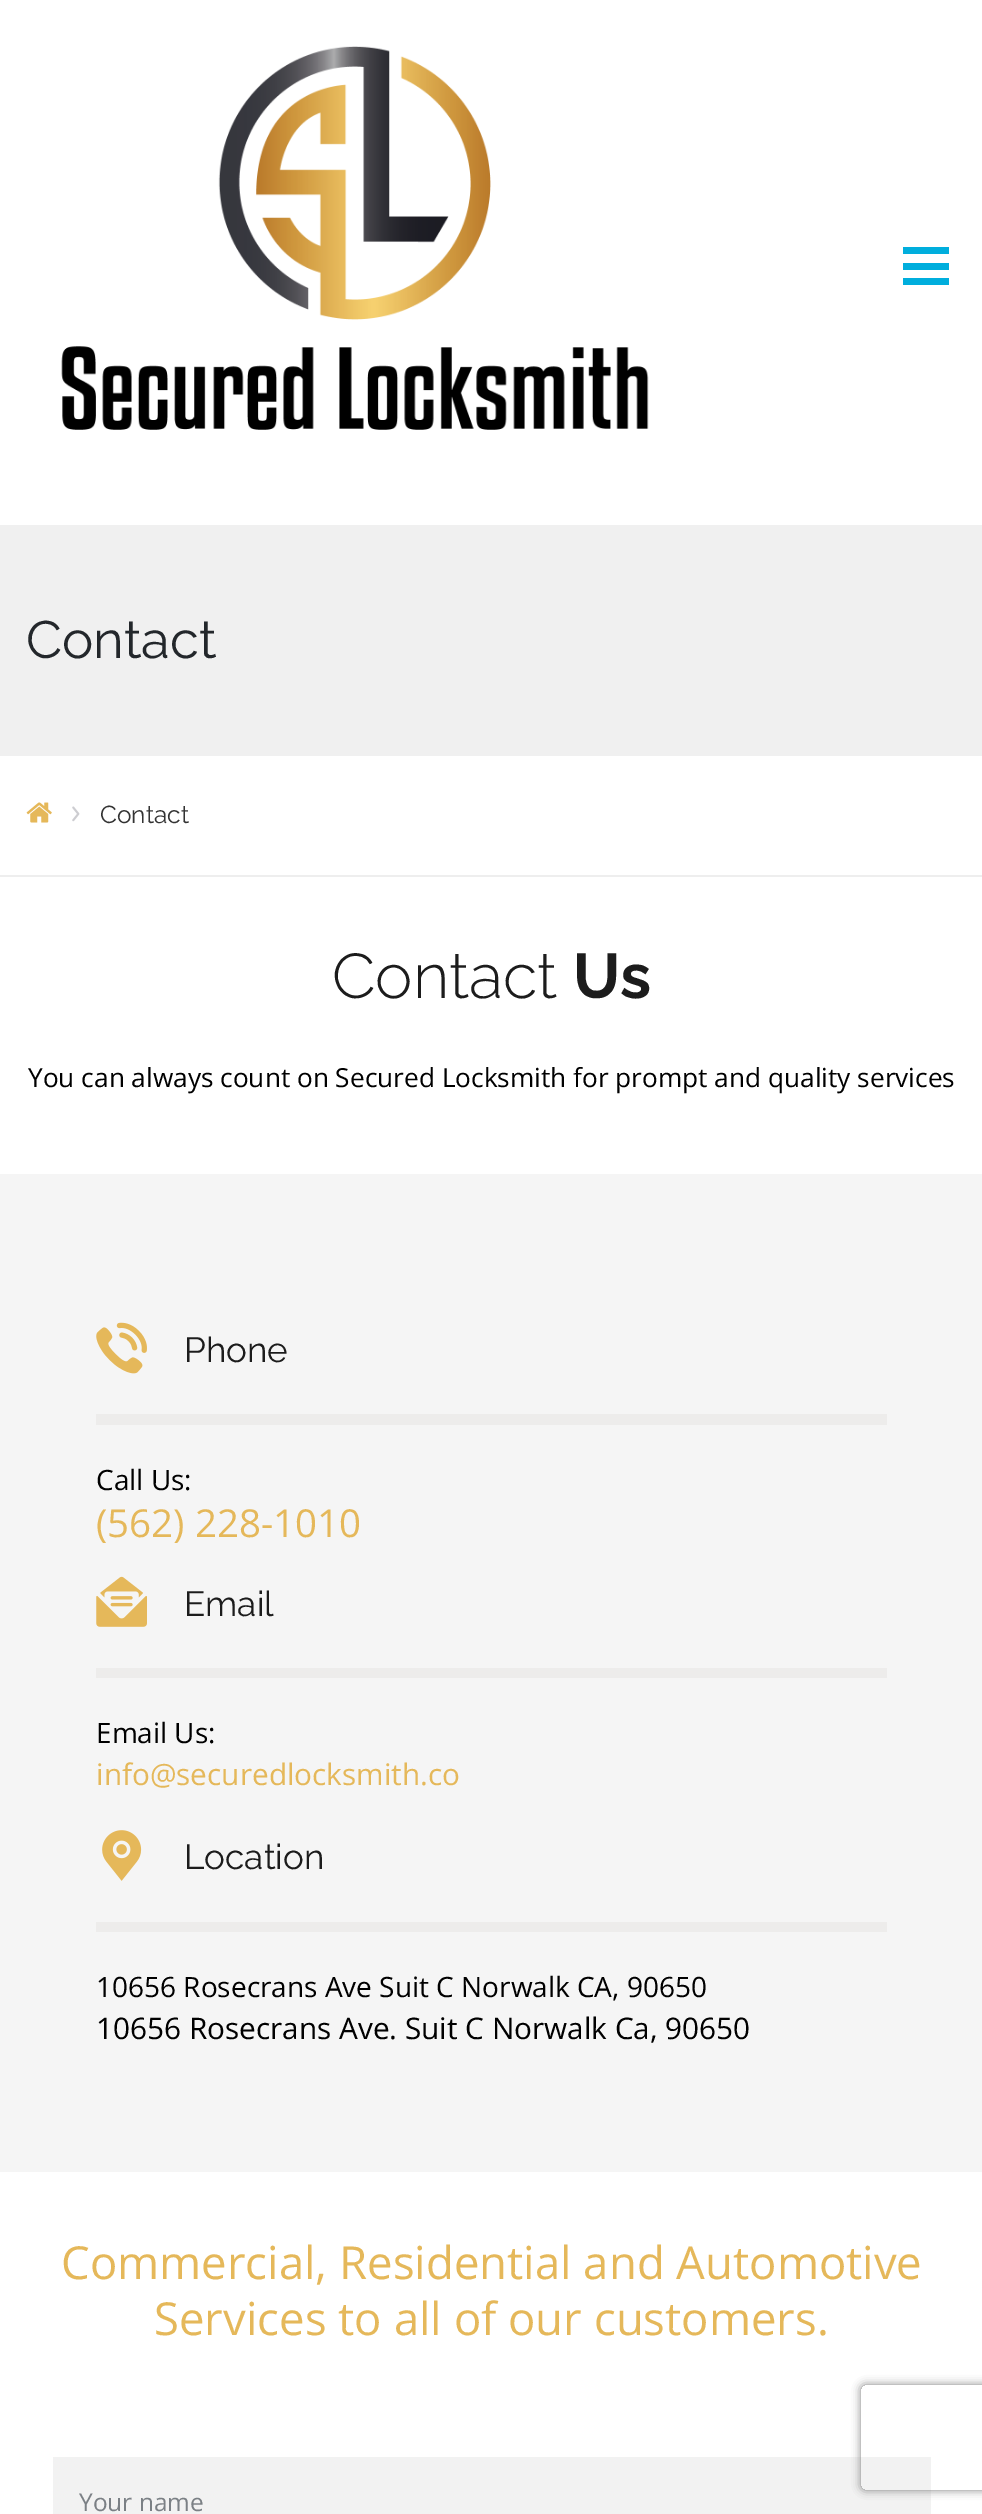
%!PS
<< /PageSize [982 2514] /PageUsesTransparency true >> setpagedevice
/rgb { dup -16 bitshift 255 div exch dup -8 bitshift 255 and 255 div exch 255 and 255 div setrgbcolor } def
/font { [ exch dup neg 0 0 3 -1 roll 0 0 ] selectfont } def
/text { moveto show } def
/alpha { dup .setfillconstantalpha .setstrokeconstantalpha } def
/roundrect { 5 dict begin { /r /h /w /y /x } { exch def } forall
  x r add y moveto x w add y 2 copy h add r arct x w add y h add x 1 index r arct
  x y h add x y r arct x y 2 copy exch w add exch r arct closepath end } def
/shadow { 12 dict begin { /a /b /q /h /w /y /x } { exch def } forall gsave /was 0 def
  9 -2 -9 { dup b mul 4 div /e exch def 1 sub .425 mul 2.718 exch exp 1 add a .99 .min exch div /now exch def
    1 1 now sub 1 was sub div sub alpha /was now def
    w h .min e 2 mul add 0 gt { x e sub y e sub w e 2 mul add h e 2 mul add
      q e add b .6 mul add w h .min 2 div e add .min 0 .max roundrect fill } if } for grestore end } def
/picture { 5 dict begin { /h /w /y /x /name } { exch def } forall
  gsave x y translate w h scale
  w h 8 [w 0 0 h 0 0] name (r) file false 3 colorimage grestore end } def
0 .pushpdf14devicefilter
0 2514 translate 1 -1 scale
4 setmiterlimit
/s1 { /Raleway-Regular 52.5 font 16#23272B rgb } def
/s2 { /Raleway-Regular 24.5 font 16#333333 rgb } def
/s3 { /Raleway-Light 63 font 16#1C1C1C rgb } def
/s4 { /Raleway-Bold 63 font 16#1C1C1C rgb } def
/s5 { /OpenSans-Regular 26.25 font 16#000000 rgb } def
/s6 { /Raleway-Regular 35 font 16#1C1C1C rgb } def
/s7 { /OpenSans-Regular 28 font 16#000000 rgb } def
/s8 { /OpenSans-Regular 38.5 font 16#E5B85A rgb } def
/s9 { /OpenSans-Regular 29.75 font 16#E5B85A rgb } def
/s10 { /OpenSans-Regular 29.75 font 16#000000 rgb } def
/s11 { /OpenSans-Regular 45.5 font 16#E5B85A rgb } def
/s12 { /OpenSans-Regular 24.5 font 16#7B8085 rgb } def
16#FFFFFF rgb
0 0 982 2514 rectfill
(pic1.raw) 61 46 588 384 picture
16#00AEDD rgb
903 247 46 7 rectfill
903 263 46 7 rectfill
903 278 46 7 rectfill
16#F0F0F0 rgb
0 525 982 231 rectfill
s1
(Contact) 26 658 text
16#EEEEEE rgb
0 875 982 2 rectfill
(pic2.raw) 26 802 26 21 picture
(pic3.raw) 72 806 8 16 picture
s2
(Contact) 100 823 text
s3
(Contact) 332 998 text
s4
(Us) 573 998 text
s5
(You can always count on Secured Locksmith for prompt and quality services) 28 1087 text
16#F5F5F5 rgb
0 1174 982 998 rectfill
(pic4.raw) 96 1322 51 52 picture
s6
(Phone) 184 1362 text
16#EDECEB rgb
96 1414 791 11 rectfill
s7
(Call Us:) 96 1490 text
s8
(\(562\) 228-1010) 96 1537 text
(pic5.raw) 96 1576 51 51 picture
s6
(Email) 184 1616 text
16#EDECEB rgb
96 1668 791 10 rectfill
s7
(Email Us:) 96 1743 text
s9
(info@securedlocksmith.co) 96 1785 text
(pic6.raw) 102 1830 40 51 picture
s6
(Location) 184 1869 text
16#EDECEB rgb
96 1922 791 10 rectfill
s7
(10656 Rosecrans Ave Suit C Norwalk CA, 90650) 96 1997 text
s10
(10656 Rosecrans Ave. Suit C Norwalk Ca, 90650) 96 2039 text
s11
(Commercial, Residential and Automotive) 61 2279 text
(Services to all of our customers.) 154 2335 text
16#F2F2F2 rgb
53 2457 878 57 rectfill
s12
(Your name) 79 2511 text
gsave
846 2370 moveto 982 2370 lineto 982 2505 lineto 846 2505 lineto closepath 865 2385 moveto 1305 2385 lineto 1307 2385 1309 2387 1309 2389 curveto 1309 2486 lineto 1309 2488 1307 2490 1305 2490 curveto 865 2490 lineto 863 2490 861 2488 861 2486 curveto 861 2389 lineto 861 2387 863 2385 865 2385 curveto closepath eoclip newpath
16#808080 rgb
861 2385 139 105 4 4.5 1 shadow
grestore
.poppdf14devicefilter showpage
